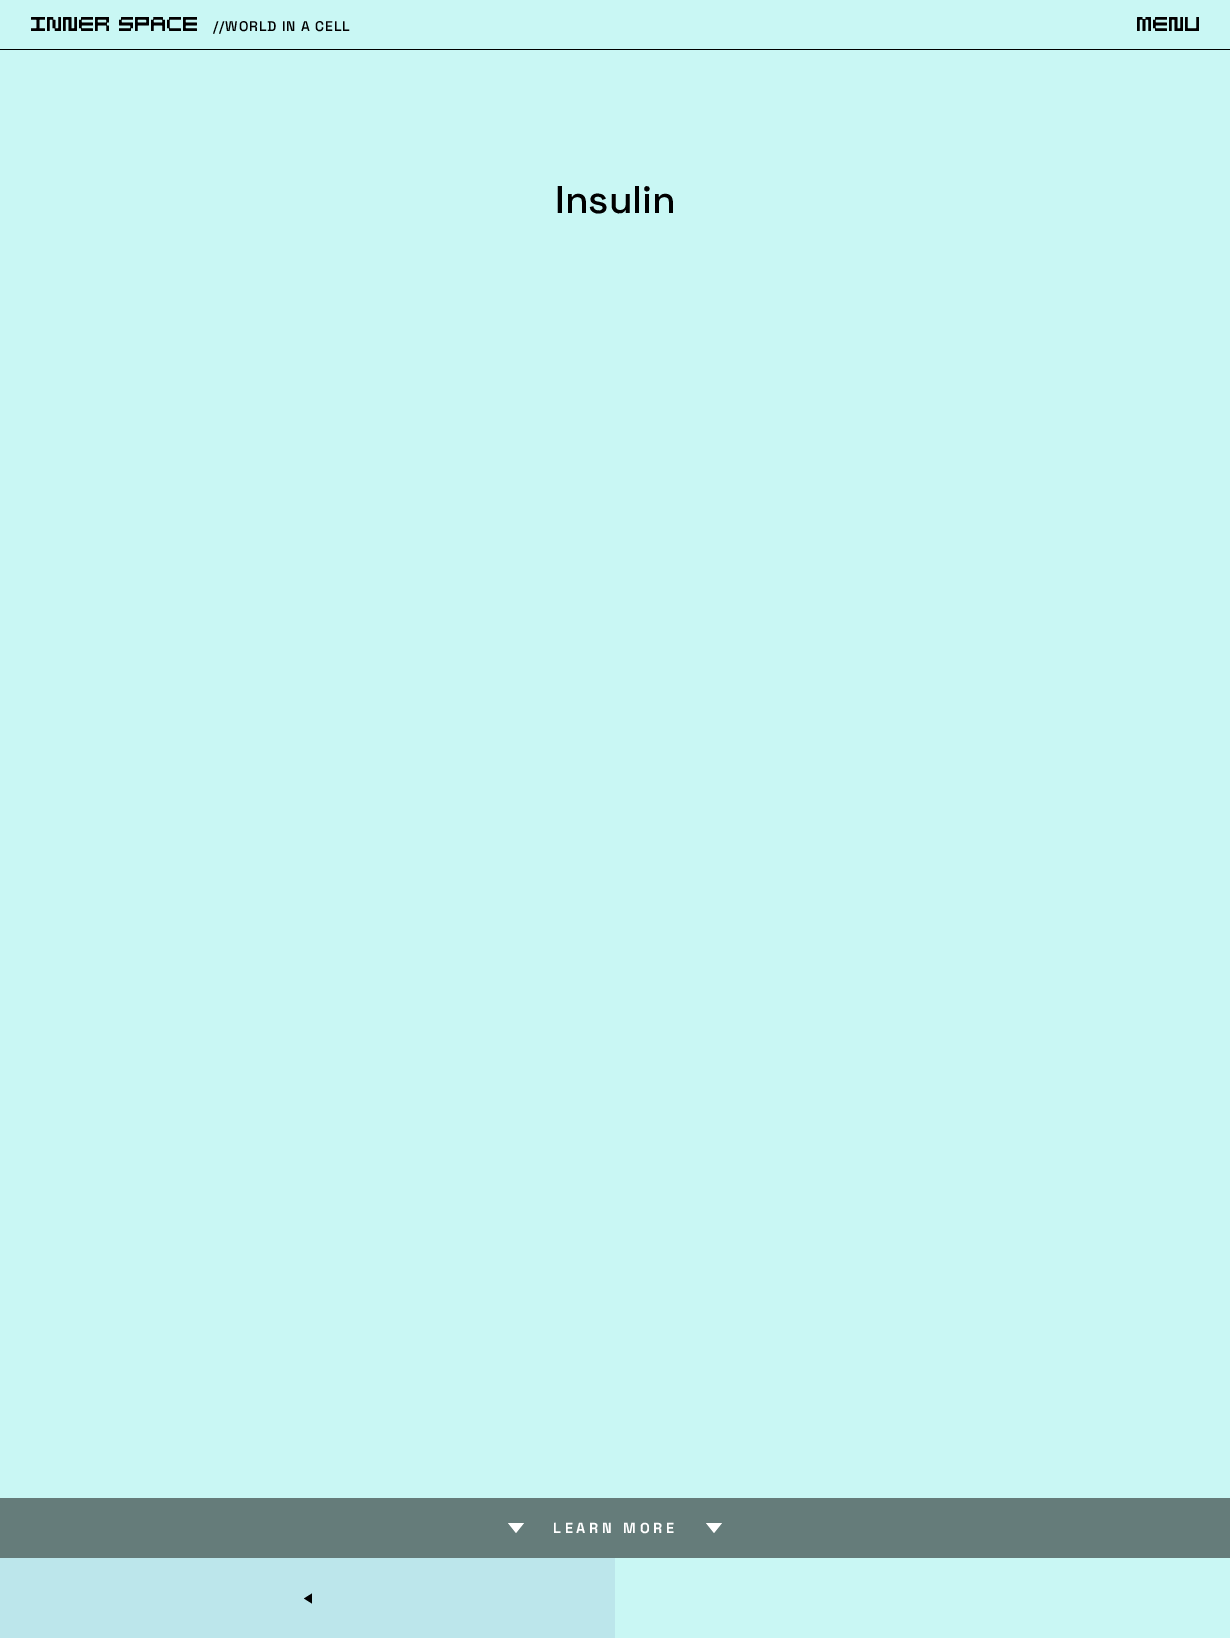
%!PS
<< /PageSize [1230 1638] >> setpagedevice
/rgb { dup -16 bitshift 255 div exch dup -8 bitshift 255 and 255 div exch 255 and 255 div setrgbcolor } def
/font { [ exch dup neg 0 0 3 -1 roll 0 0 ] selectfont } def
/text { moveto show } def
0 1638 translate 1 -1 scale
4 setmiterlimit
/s1 { /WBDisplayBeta-Regular 20 font 16#000000 rgb } def
/s2 { /SpaceGrotesk-Medium 38.5 font 16#000000 rgb } def
16#C9F7F4 rgb
0 0 1230 1638 rectfill
16#000000 rgb
0 49 1230 1 rectfill
s1
(iNnER SpACe) 30 31 text
/SpaceGrotesk-Medium 14 font
213 31 moveto 0.9 0 (//WORLD IN A CELL) ashow
s1
(MEnU) 1136 31 text
s2
(Insulin) 555 213 text
16#657C7A rgb
0 1498 1230 60 rectfill
16#FFFFFF rgb
508 1523 moveto 524 1523 lineto 516 1533 lineto closepath fill
/SpaceGrotesk-Bold 14.5 font
553 1533 moveto 3.75 0 (LEARN MORE) ashow
706 1523 moveto 722 1523 lineto 714 1533 lineto closepath fill
16#BCE6EB rgb
0 1558 615 80 rectfill
16#000000 rgb
312 1593.5 moveto 312 1603.5 lineto 304 1598.5 lineto closepath fill
showpage
